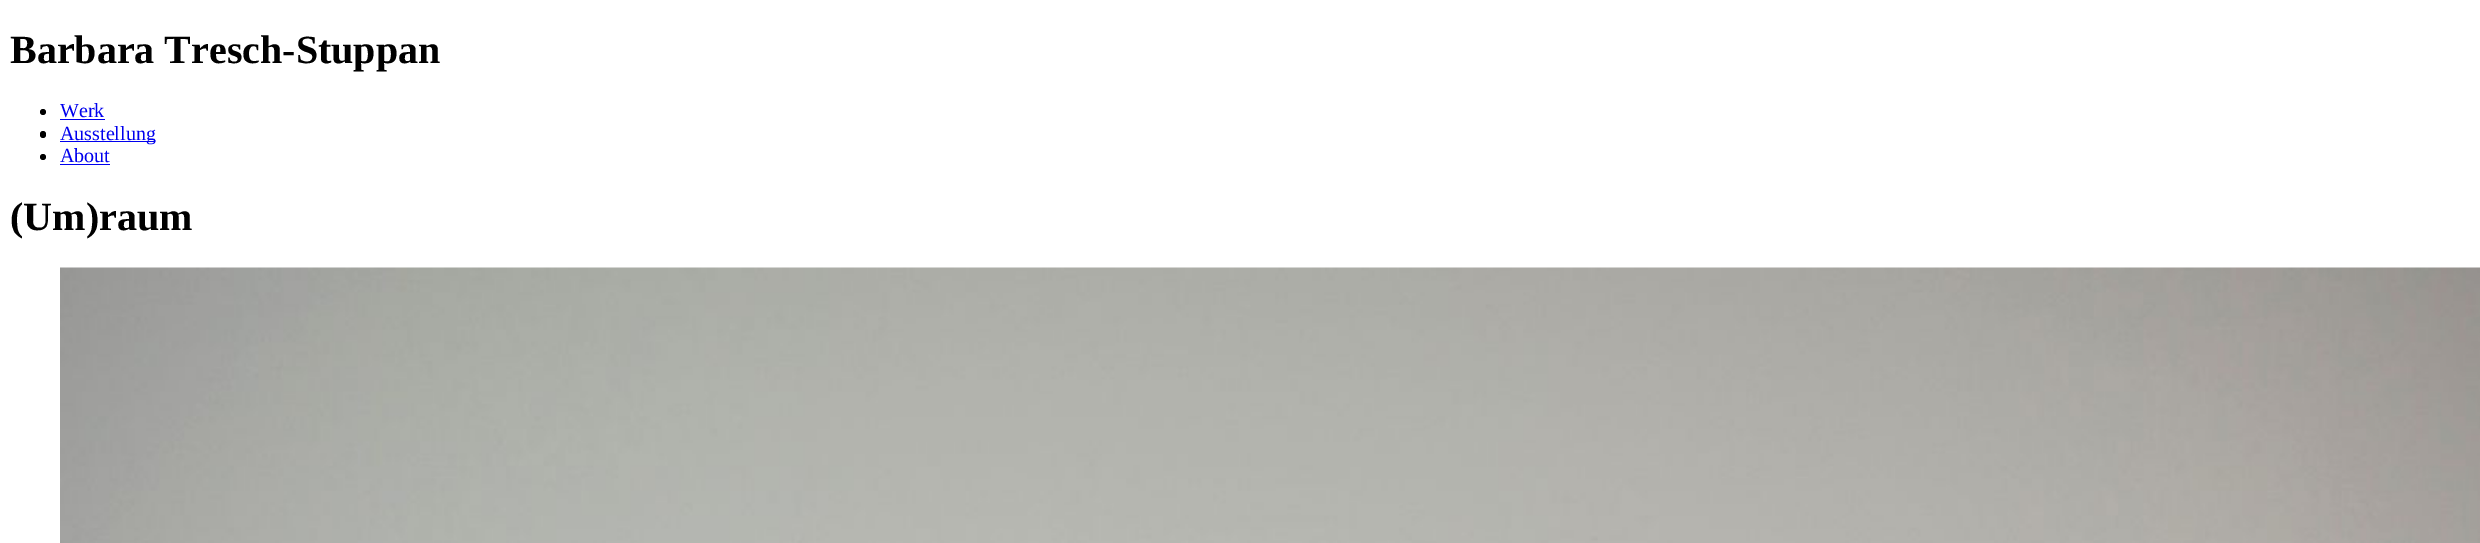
%!PS
<< /PageSize [2480 543] >> setpagedevice
/rgb { dup -16 bitshift 255 div exch dup -8 bitshift 255 and 255 div exch 255 and 255 div setrgbcolor } def
/font { [ exch dup neg 0 0 3 -1 roll 0 0 ] selectfont } def
/text { moveto show } def
/circle { newpath 0 360 arc closepath } def
/roundrect { 5 dict begin { /r /h /w /y /x } { exch def } forall
  x r add y moveto x w add y 2 copy h add r arct x w add y h add x 1 index r arct
  x y h add x y r arct x y 2 copy exch w add exch r arct closepath end } def
/picture { 5 dict begin { /h /w /y /x /name } { exch def } forall
  gsave x y translate w h scale
  w h 8 [w 0 0 h 0 0] name (r) file false 3 colorimage grestore end } def
0 543 translate 1 -1 scale
4 setmiterlimit
/s1 { /LiberationSerif-Bold 40 font 16#000000 rgb } def
/s2 { /LiberationSerif-Regular 20 font 16#0000EE rgb } def
16#FFFFFF rgb
0 0 2480 543 rectfill
s1
(Barbara Tresch-Stuppan) 10 63 text
43 112 3 circle fill
s2
(Werk) 60 117 text
60 119 45 1 rectfill
16#000000 rgb
40 131 6 7 3 roundrect fill
16#0000EE rgb
60 141 95 1 rectfill
(Ausstellung) 60 140 text
16#000000 rgb
43 157 3 circle fill
s2
(About) 60 162 text
60 164 50 1 rectfill
s1
(\(Um\)raum) 10 230 text
(pic1.raw) 60 267 2420 276 picture
showpage
